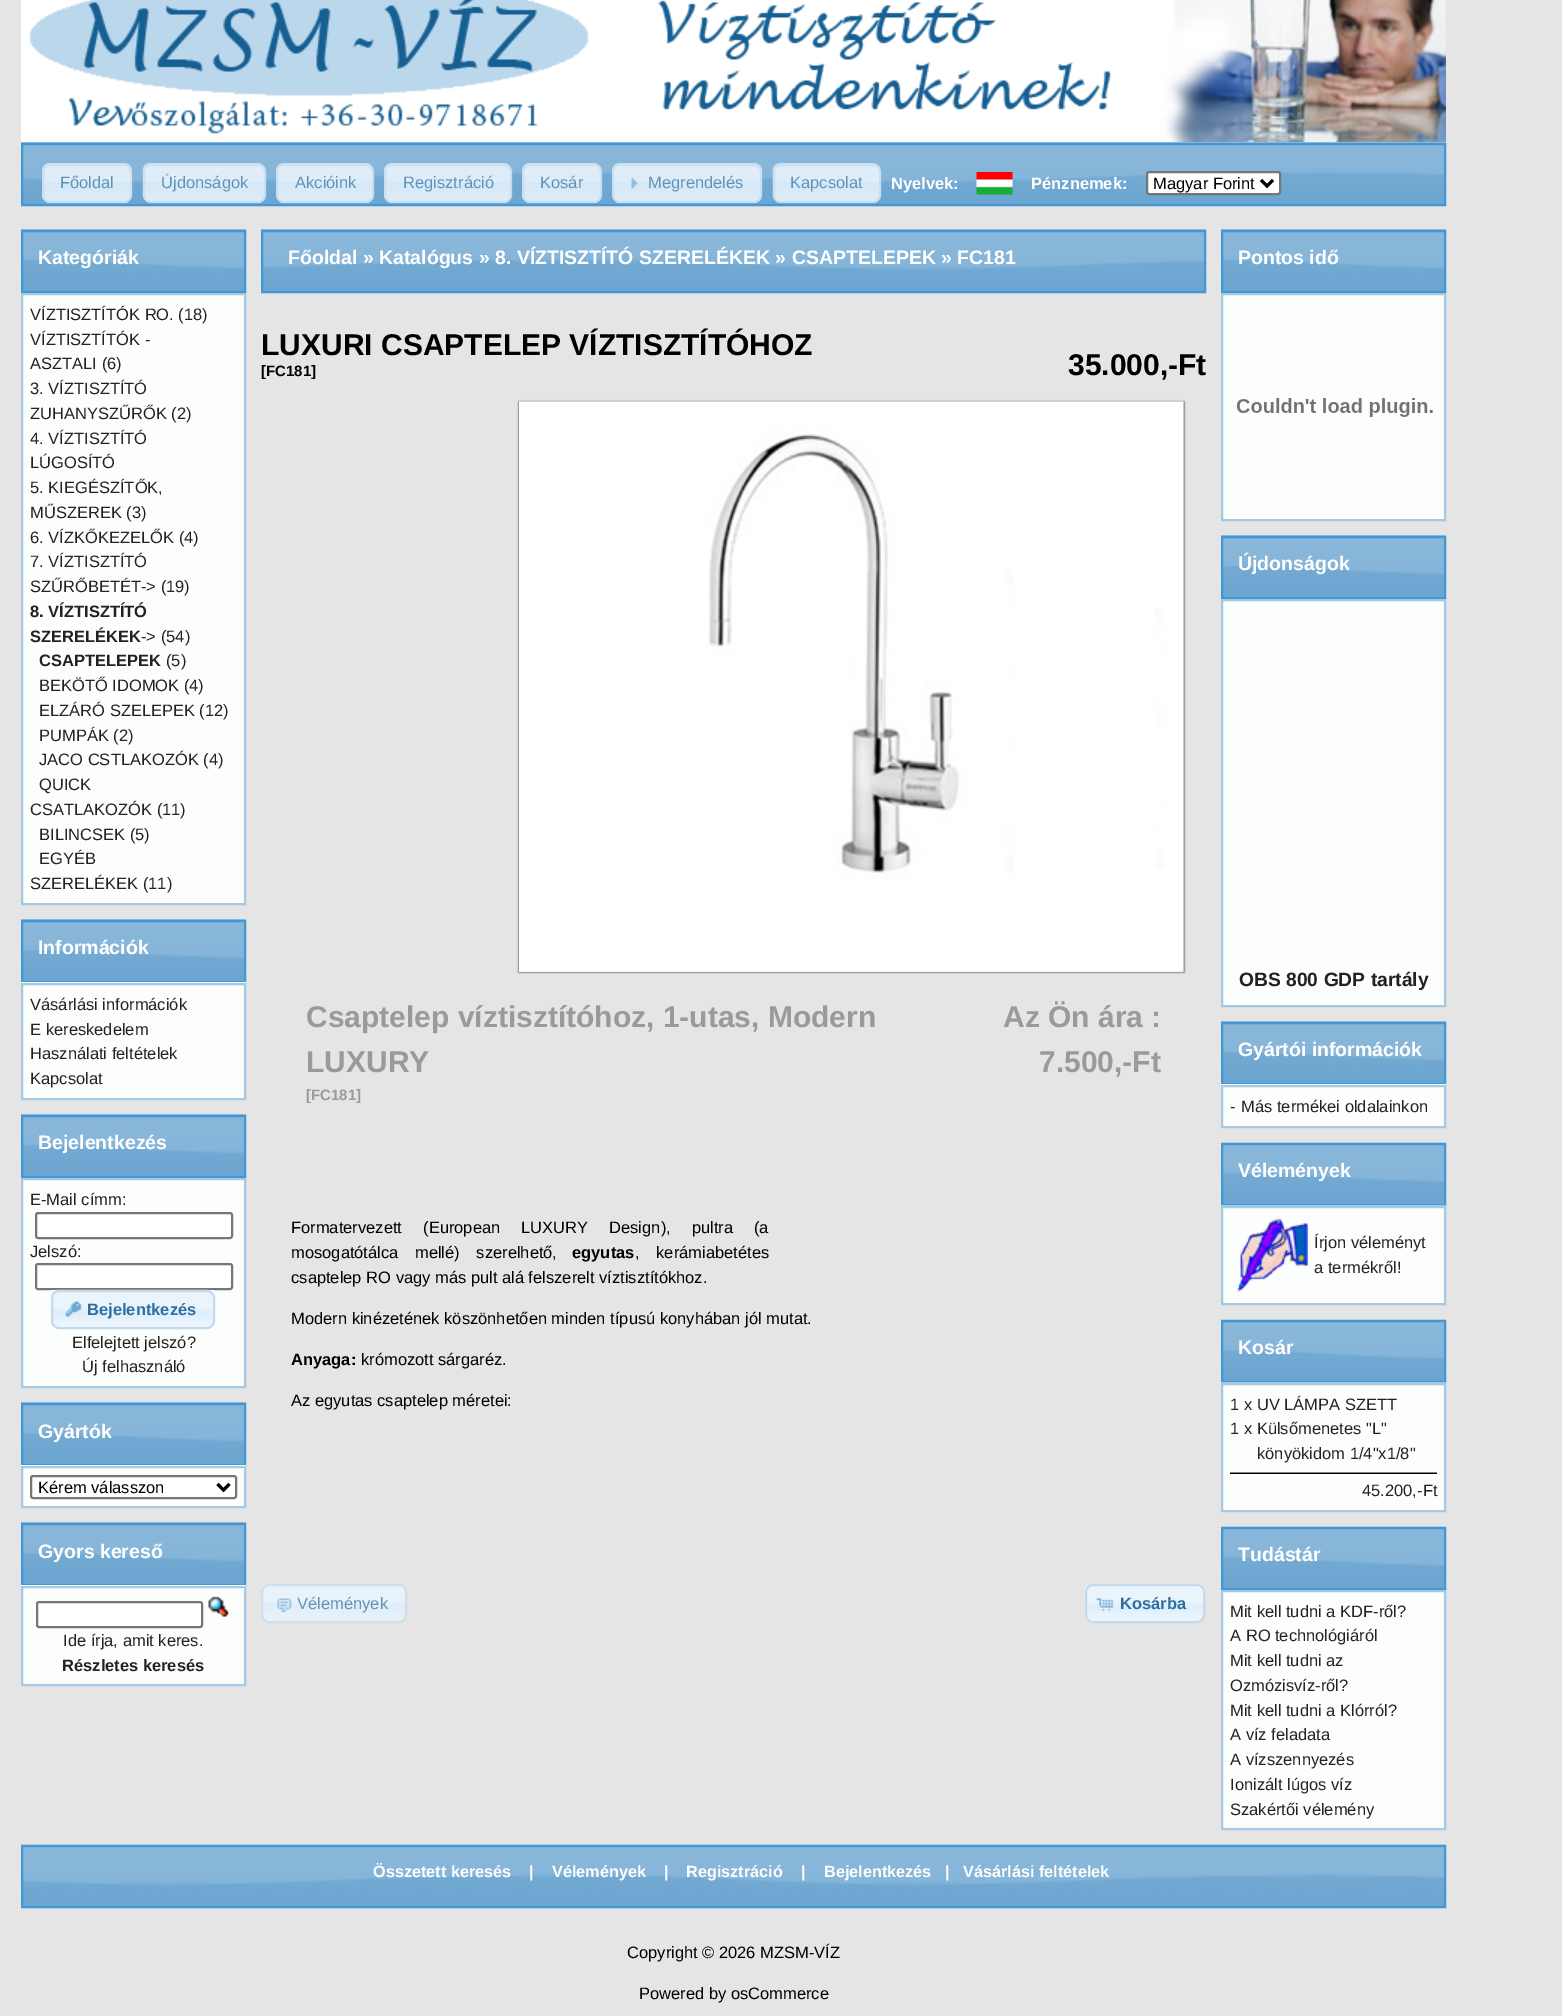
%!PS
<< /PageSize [1562 2016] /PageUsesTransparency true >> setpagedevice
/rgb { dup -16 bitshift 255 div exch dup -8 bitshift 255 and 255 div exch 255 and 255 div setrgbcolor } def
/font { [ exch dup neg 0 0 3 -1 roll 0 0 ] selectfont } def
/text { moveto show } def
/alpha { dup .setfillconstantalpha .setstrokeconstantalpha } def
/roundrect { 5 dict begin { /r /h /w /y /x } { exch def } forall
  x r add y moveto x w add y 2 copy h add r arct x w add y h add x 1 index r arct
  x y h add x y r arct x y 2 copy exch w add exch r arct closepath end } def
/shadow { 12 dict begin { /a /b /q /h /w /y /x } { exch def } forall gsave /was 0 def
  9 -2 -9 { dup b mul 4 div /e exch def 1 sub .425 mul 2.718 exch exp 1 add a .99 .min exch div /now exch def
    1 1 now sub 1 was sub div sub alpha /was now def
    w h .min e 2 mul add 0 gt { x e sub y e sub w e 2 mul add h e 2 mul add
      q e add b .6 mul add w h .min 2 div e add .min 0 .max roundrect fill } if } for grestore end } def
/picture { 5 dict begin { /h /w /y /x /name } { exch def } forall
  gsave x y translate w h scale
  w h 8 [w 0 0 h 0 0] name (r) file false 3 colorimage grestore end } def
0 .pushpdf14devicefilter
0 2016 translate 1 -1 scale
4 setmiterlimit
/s1 { /LiberationSans-Regular 16.5 font 16#6193B9 rgb } def
/s2 { /LiberationSans-Bold 16.5 font 16#FFFFFF rgb } def
/s3 { /LiberationSans-Regular 16.5 font 16#000000 rgb } def
/s4 { /LiberationSans-Bold 19.5 font 16#FFFFFF rgb } def
/s5 { /LiberationSans-Regular 16.5 font 16#222222 rgb } def
/s6 { /LiberationSans-Bold 16.5 font 16#222222 rgb } def
/s7 { /LiberationSans-Bold 16.5 font 16#2E6E9E rgb } def
/s8 { /LiberationSans-Bold 30 font 16#000000 rgb } def
/s9 { /LiberationSans-Bold 15 font 16#000000 rgb } def
/s10 { /LiberationSans-Bold 30 font 16#9A9A9A rgb } def
/s11 { /LiberationSans-Bold 15 font 16#9A9A9A rgb } def
/s12 { /LiberationSans-Bold 16.5 font 16#000000 rgb } def
/s13 { /LiberationSans-Regular 16.5 font 16#6592B3 rgb } def
/s14 { /LiberationSans-Bold 19.25 font 16#222222 rgb } def
/s15 { /LiberationSans-Bold 16.25 font 16#FFFFFF rgb } def
16#E5E5E5 rgb
0 0 1562 2016 rectfill
(pic1.raw) 21 0 1425 142 picture
(pic2.raw) 21 142 1425 62 picture
16#4297D7 rgb
2 setlinewidth
22 144 1423 61 rectstroke
0.7 alpha
16#DFEFFC rgb
42 164 90 39 8 roundrect fill
1 alpha
(pic3.raw) 42 163 90 39 picture
0.7 alpha
16#C5DBEC rgb
43 165 88 37 7 roundrect stroke
1 alpha
s1
(Főoldal) 60 188 text
0.7 alpha
16#DFEFFC rgb
143 164 123 39 8 roundrect fill
1 alpha
(pic4.raw) 142 163 124 39 picture
0.7 alpha
16#C5DBEC rgb
144 165 121 37 7 roundrect stroke
1 alpha
s1
(Újdonságok) 161 188 text
0.7 alpha
16#DFEFFC rgb
276 164 98 39 8 roundrect fill
1 alpha
(pic5.raw) 276 163 98 39 picture
0.7 alpha
16#C5DBEC rgb
277 165 96 37 7 roundrect stroke
1 alpha
s1
(Akcióink) 295 188 text
0.7 alpha
16#DFEFFC rgb
384 164 128 39 8 roundrect fill
1 alpha
(pic6.raw) 384 163 128 39 picture
0.7 alpha
16#C5DBEC rgb
385 165 126 37 7 roundrect stroke
1 alpha
s1
(Regisztráció) 403 188 text
0.7 alpha
16#DFEFFC rgb
522 164 80 39 8 roundrect fill
1 alpha
(pic7.raw) 522 163 80 39 picture
0.7 alpha
16#C5DBEC rgb
523 165 78 37 7 roundrect stroke
1 alpha
s1
(Kosár) 540 188 text
0.7 alpha
16#DFEFFC rgb
612 164 150 39 8 roundrect fill
1 alpha
(pic8.raw) 612 163 150 39 picture
0.7 alpha
16#C5DBEC rgb
613 165 148 37 7 roundrect stroke
1 alpha
(pic9.raw) 631 177 7 12 picture
s1
(Megrendelés) 648 188 text
0.7 alpha
16#DFEFFC rgb
773 164 108 39 8 roundrect fill
1 alpha
(pic10.raw) 772 163 109 39 picture
0.7 alpha
16#C5DBEC rgb
774 165 106 37 7 roundrect stroke
1 alpha
s1
(Kapcsolat) 790 188 text
s2
(Nyelvek:) 891 189 text
(pic11.raw) 976 172 37 23 picture
(Pénznemek:) 1031 189 text
1147 172 133 22 2 roundrect gsave fill grestore
16#767676 rgb
stroke
16#000000 rgb
3 setlinewidth
1261 180 moveto 1267 186 lineto 1273 180 lineto stroke
s3
(Magyar Forint) 1153 189 text
(pic12.raw) 21 229 225 62 picture
16#4297D7 rgb
2 setlinewidth
22 231 223 61 rectstroke
s4
(Kategóriák) 38 264 text
16#FCFDFD rgb
22 294 moveto 245 294 lineto 245 904 lineto 22 904 lineto closepath gsave fill grestore
16#A6C9E2 rgb
stroke
s5
(VÍZTISZTÍTÓK RO. \(18\)) 30 320 text
(VÍZTISZTÍTÓK -) 30 345 text
(ASZTALI \(6\)) 30 369 text
(3. VÍZTISZTÍTÓ) 30 394 text
(ZUHANYSZŰRŐK \(2\)) 30 419 text
(4. VÍZTISZTÍTÓ) 30 444 text
(LÚGOSÍTÓ) 30 468 text
(5. KIEGÉSZÍTŐK,) 30 493 text
(MŰSZEREK \(3\)) 30 518 text
(6. VÍZKŐKEZELŐK \(4\)) 30 543 text
(7. VÍZTISZTÍTÓ) 30 567 text
(SZŰRŐBETÉT-> \(19\)) 30 592 text
s6
(8. VÍZTISZTÍTÓ) 30 617 text
(SZERELÉKEK) 30 642 text
s5
(-> \(54\)) 141 642 text
s6
(CSAPTELEPEK) 39 666 text
s5
(\(5\)) 166 666 text
(BEKÖTŐ IDOMOK \(4\)) 39 691 text
(ELZÁRÓ SZELEPEK \(12\)) 39 716 text
(PUMPÁK \(2\)) 39 741 text
(JACO CSTLAKOZÓK \(4\)) 39 765 text
(QUICK) 39 790 text
(CSATLAKOZÓK \(11\)) 30 815 text
(BILINCSEK \(5\)) 39 840 text
(EGYÉB) 39 864 text
(SZERELÉKEK \(11\)) 30 889 text
(pic12.raw) 21 919 225 62 picture
16#4297D7 rgb
22 921 223 61 rectstroke
s4
(Információk) 38 954 text
16#FCFDFD rgb
22 984 moveto 245 984 lineto 245 1099 lineto 22 1099 lineto closepath gsave fill grestore
16#A6C9E2 rgb
stroke
16#FCFDFD rgb
21 982 225 1 rectfill
s5
(Vásárlási információk) 30 1010 text
(E kereskedelem) 30 1035 text
(Használati feltételek) 30 1059 text
(Kapcsolat) 30 1084 text
(pic12.raw) 21 1114 225 62 picture
16#4297D7 rgb
22 1116 223 61 rectstroke
s4
(Bejelentkezés) 38 1149 text
16#FCFDFD rgb
22 1179 moveto 245 1179 lineto 245 1387 lineto 22 1387 lineto closepath gsave fill grestore
16#A6C9E2 rgb
stroke
s5
(E-Mail címm:) 30 1205 text
16#FFFFFF rgb
36 1213 196 25 2 roundrect gsave fill grestore
16#767676 rgb
stroke
s5
(Jelszó:) 30 1257 text
16#FFFFFF rgb
36 1264 196 25 2 roundrect gsave fill grestore
16#767676 rgb
stroke
(pic13.raw) 51 1289 163 40 picture
16#C5DBEC rgb
52 1291 162 37 7 roundrect stroke
(pic14.raw) 65 1301 17 16 picture
s7
(Bejelentkezés) 87 1315 text
s5
(Elfelejtett jelszó?) 72 1348 text
(Új felhasználó) 82 1372 text
(pic12.raw) 21 1402 225 62 picture
16#4297D7 rgb
22 1404 223 61 rectstroke
s4
(Gyártók) 38 1438 text
16#FCFDFD rgb
22 1467 moveto 245 1467 lineto 245 1507 lineto 22 1507 lineto closepath gsave fill grestore
16#A6C9E2 rgb
stroke
16#FDFEFE rgb
21 1465 225 1 rectfill
16#FFFFFF rgb
31 1476 205 22 2 roundrect gsave fill grestore
16#767676 rgb
stroke
16#000000 rgb
3 setlinewidth
217.5 1484 moveto 223.5 1490 lineto 229.5 1484 lineto stroke
s3
(Kérem válasszon) 38 1493 text
(pic12.raw) 21 1522 225 62 picture
16#4297D7 rgb
2 setlinewidth
22 1524 223 61 rectstroke
s4
(Gyors kereső) 38 1558 text
16#FCFDFD rgb
22 1587 moveto 245 1587 lineto 245 1685 lineto 22 1685 lineto closepath gsave fill grestore
16#A6C9E2 rgb
stroke
16#FCFDFD rgb
21 1585 225 1 rectfill
16#FFFFFF rgb
37 1602 165 25 2 roundrect gsave fill grestore
16#767676 rgb
stroke
(pic15.raw) 208 1596 21 21 picture
s5
(Ide írja, amit keres.) 63 1646 text
s6
(Részletes keresés) 62 1671 text
(pic16.raw) 261 229 945 62 picture
16#4297D7 rgb
262 231 943 61 rectstroke
s4
(Főoldal » Katalógus » 8. VÍZTISZTÍTÓ SZERELÉKEK » CSAPTELEPEK » FC181) 288 264 text
s8
(LUXURI CSAPTELEP VÍZTISZTÍTÓHOZ) 261 355 text
s9
([FC181]) 261 376 text
s8
(35.000,-Ft) 1068 375 text
519 402 665 570 0 1 1 shadow
(pic17.raw) 519 401 665 571 picture
s10
(Csaptelep víztisztítóhoz, 1-utas, Modern) 306 1027 text
(LUXURY) 306 1072 text
s11
([FC181]) 306 1100 text
s10
(Az Ön ára :) 1003 1027 text
(7.500,-Ft) 1039 1072 text
/LiberationSans-Regular 16.5 font
16#000000 rgb
291 1233 moveto 16.5 0 32 (Formatervezett \(European LUXURY Design\), pultra \(a) widthshow
291 1258 moveto 12 0 32 (mosogatótálca mellé\) szerelhető,) widthshow
s12
(egyutas) 572 1258 text
/LiberationSans-Regular 16.5 font
635 1258 moveto 12 0 32 (, kerámiabetétes) widthshow
(csaptelep RO vagy más pult alá felszerelt víztisztítókhoz.) 291 1283 text
(Modern kinézetének köszönhetően minden típusú konyhában jól mutat.) 291 1324 text
s12
(Anyaga:) 291 1365 text
s3
(krómozott sárgaréz.) 361 1365 text
(Az egyutas csaptelep méretei:) 291 1406 text
(pic18.raw) 261 1583 145 39 picture
16#CFDEEA rgb
262 1585 144 37 7 roundrect stroke
(pic19.raw) 277 1598 15 15 picture
s13
(Vélemények) 297 1609 text
(pic20.raw) 1084 1583 120 40 picture
16#C5DBEC rgb
1086 1585 118 37 7 roundrect stroke
(pic21.raw) 1096 1598 18 13 picture
s7
(Kosárba) 1120 1609 text
(pic12.raw) 1221 229 225 62 picture
16#4297D7 rgb
1222 231 223 61 rectstroke
s4
(Pontos idő) 1238 264 text
16#FCFDFD rgb
1222 294 moveto 1445 294 lineto 1445 520 lineto 1222 520 lineto closepath gsave fill grestore
16#A6C9E2 rgb
stroke
(pic22.raw) 1236 398 197 19 picture
(pic12.raw) 1221 535 225 62 picture
16#4297D7 rgb
1222 537 223 61 rectstroke
s4
(Újdonságok) 1238 570 text
16#FCFDFD rgb
1222 600 moveto 1445 600 lineto 1445 1006 lineto 1222 1006 lineto closepath gsave fill grestore
16#A6C9E2 rgb
stroke
s14
(OBS 800 GDP tartály) 1239 986 text
(pic12.raw) 1221 1021 225 62 picture
16#4297D7 rgb
1222 1023 223 61 rectstroke
s4
(Gyártói információk) 1238 1056 text
16#FCFDFD rgb
1222 1086 moveto 1445 1086 lineto 1445 1127 lineto 1222 1127 lineto closepath gsave fill grestore
16#A6C9E2 rgb
stroke
16#FDFEFE rgb
1221 1084 225 1 rectfill
s5
(-) 1230 1112 text
(Más termékei oldalainkon) 1241 1112 text
(pic23.raw) 1221 1142 225 62 picture
16#4297D7 rgb
1222 1144 223 61 rectstroke
s4
(Vélemények) 1238 1177 text
16#FCFDFD rgb
1222 1207 moveto 1445 1207 lineto 1445 1304 lineto 1222 1304 lineto closepath gsave fill grestore
16#A6C9E2 rgb
stroke
16#9FCAEA rgb
1221 1205 225 1 rectfill
(pic24.raw) 1237 1218 71 74 picture
s5
(Írjon véleményt) 1314 1248 text
(a termékről!) 1314 1273 text
(pic23.raw) 1221 1319 225 62 picture
16#4297D7 rgb
1222 1321 223 61 rectstroke
s4
(Kosár) 1238 1354 text
16#FCFDFD rgb
1222 1384 moveto 1445 1384 lineto 1445 1511 lineto 1222 1511 lineto closepath gsave fill grestore
16#A6C9E2 rgb
stroke
16#9FCAEA rgb
1221 1382 225 1 rectfill
s5
(1 x UV LÁMPA SZETT) 1230 1410 text
(1 x Külsőmenetes "L") 1230 1434 text
(könyökidom 1/4"x1/8") 1257 1459 text
(pic25.raw) 1230 1472 207 2 picture
(45.200,-Ft) 1362 1496 text
(pic23.raw) 1221 1526 225 62 picture
16#4297D7 rgb
1222 1528 223 61 rectstroke
s4
(Tudástár) 1238 1561 text
16#FCFDFD rgb
1222 1591 moveto 1445 1591 lineto 1445 1829 lineto 1222 1829 lineto closepath gsave fill grestore
16#A6C9E2 rgb
stroke
s5
(Mit kell tudni a KDF-ről?) 1230 1617 text
(A RO technológiáról) 1230 1641 text
(Mit kell tudni az) 1230 1666 text
(Ozmózisvíz-ről?) 1230 1691 text
(Mit kell tudni a Klórról?) 1230 1716 text
(A víz feladata) 1230 1740 text
(A vízszennyezés) 1230 1765 text
(Ionizált lúgos víz) 1230 1790 text
(Szakértői vélemény) 1230 1815 text
(pic26.raw) 21 1844 1425 62 picture
16#4297D7 rgb
22 1846 1423 61 rectstroke
s15
(Összetett keresés) 373 1877 text
(|) 529 1877 text
(Vélemények) 552 1877 text
(|) 664 1877 text
(Regisztráció) 686 1877 text
(|) 801 1877 text
(Bejelentkezés) 824 1877 text
(|) 945 1877 text
(Vásárlási feltételek) 963 1877 text
s3
(Copyright © 2026 MZSM-VÍZ) 627 1958 text
(Powered by osCommerce) 639 1999 text
.poppdf14devicefilter showpage
